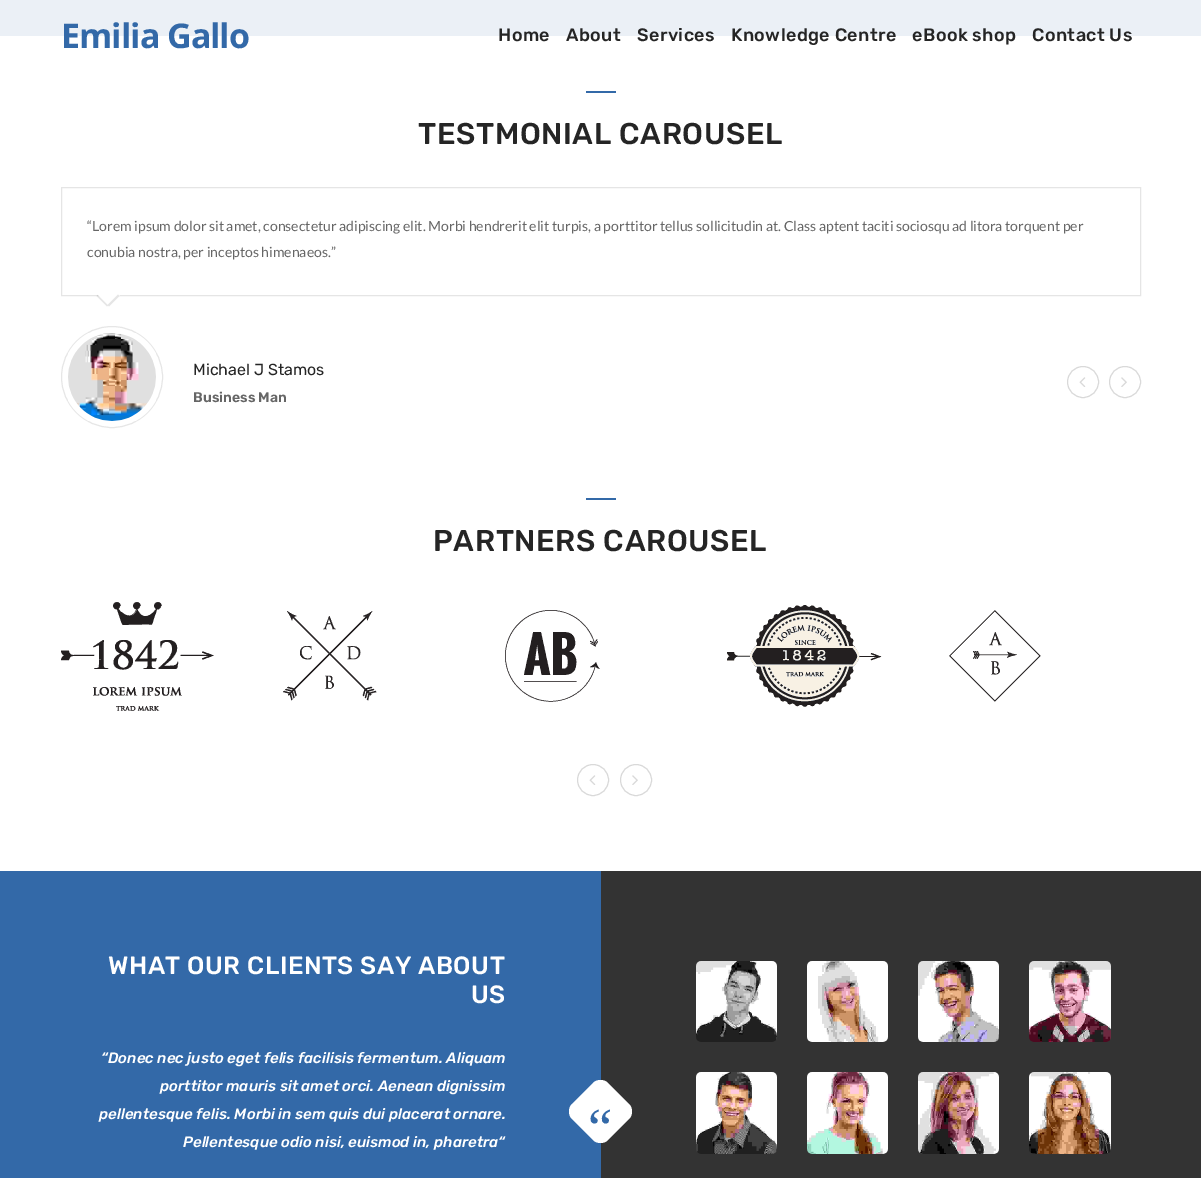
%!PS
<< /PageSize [1201 1178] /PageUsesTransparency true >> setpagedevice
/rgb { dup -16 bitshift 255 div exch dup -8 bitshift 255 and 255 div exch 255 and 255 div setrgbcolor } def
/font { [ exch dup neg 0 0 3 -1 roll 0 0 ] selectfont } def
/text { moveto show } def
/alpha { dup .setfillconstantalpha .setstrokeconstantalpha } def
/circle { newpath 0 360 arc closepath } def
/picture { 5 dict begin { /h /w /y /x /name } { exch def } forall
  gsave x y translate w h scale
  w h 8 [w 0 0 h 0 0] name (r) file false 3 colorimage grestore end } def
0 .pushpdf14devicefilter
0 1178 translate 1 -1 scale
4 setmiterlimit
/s1 { /Lato-Regular 14 font 16#666666 rgb } def
/s2 { /Rubik-Regular 16 font 16#252525 rgb } def
/s3 { /Rubik-SemiBold 14 font 16#666666 rgb } def
/s4 { /Rubik-MediumItalic 15 font 16#FFFFFF rgb } def
/s5 { /LiberationSerif-Regular 55 font 16#3369A8 rgb } def
16#FFFFFF rgb
0 0 1201 1178 rectfill
16#EBF0F6 rgb
0 0 1201 36 rectfill
/OpenSans-Bold 34 font
16#3369A8 rgb
61 48 moveto -1 0 (Emilia Gallo) ashow
/Rubik-Medium 18 font
16#252525 rgb
498 41 moveto 0.4 0 (Home) ashow
566 41 moveto 0.4 0 (About) ashow
637 41 moveto 0.4 0 (Services) ashow
731 41 moveto 0.4 0 (Knowledge Centre) ashow
912 41 moveto 0.4 0 (eBook shop) ashow
1032 41 moveto 0.4 0 (Contact Us) ashow
16#3369A8 rgb
586 91 30 2 rectfill
/Rubik-Medium 30 font
16#252525 rgb
418 144 moveto 0.6 0 (TESTMONIAL CAROUSEL) ashow
16#E6E6E6 rgb
96.5 296 moveto 98 294.5 lineto 108.5 305 lineto 107 306.5 lineto closepath fill
0.1 alpha
16#000000 rgb
61.5 187.5 1079 108 rectstroke
1 alpha
s1
(“Lorem ipsum dolor sit amet, consectetur adipiscing elit. Morbi hendrerit elit turpis, a porttitor tellus sollicitudin at. Class aptent taciti sociosqu ad litora torquent per) 87 231 text
(conubia nostra, per inceptos himenaeos.”) 87 257 text
16#FFFFFF rgb
95 292 moveto 123 292 lineto 109 306 lineto closepath fill
16#E5E5E5 rgb
118 294.5 moveto 119.5 296 lineto 109 306.5 lineto 107.5 305 lineto closepath fill
16#E6E6E6 rgb
112 377 50.5 circle stroke
(pic1.raw) 68 333 88 88 picture
s2
(Michael J Stamos) 193 375 text
s3
(Business Man) 193 402 text
16#D9D9D9 rgb
1083 382 15.5 circle stroke
(pic2.raw) 1079 377 7 10 picture
1125 382 15.5 circle stroke
(pic3.raw) 1121 377 6 10 picture
16#3369A8 rgb
586 498 30 2 rectfill
/Rubik-Medium 30 font
16#252525 rgb
433 551 moveto 0.6 0 (PARTNERS CAROUSEL) ashow
(pic4.raw) 61 602 153 109 picture
(pic5.raw) 283 611 94 90 picture
(pic6.raw) 505 610 95 92 picture
(pic7.raw) 727 605 155 102 picture
(pic8.raw) 949 610 92 92 picture
16#D9D9D9 rgb
593 780 15.5 circle stroke
(pic2.raw) 589 775 7 10 picture
636 780 15.5 circle stroke
(pic3.raw) 632 775 6 10 picture
16#3369A8 rgb
0 871 601 307 rectfill
/Rubik-Medium 25 font
16#FFFFFF rgb
108 974 moveto 0.5 0 (WHAT OUR CLIENTS SAY ABOUT) ashow
471 1003 moveto 0.5 0 (US) ashow
s4
(“Donec nec justo eget felis facilisis fermentum. Aliquam) 101 1063 text
(porttitor mauris sit amet orci. Aenean dignissim) 160 1091 text
(pellentesque felis. Morbi in sem quis dui placerat ornare.) 99 1119 text
(Pellentesque odio nisi, euismod in, pharetra“) 183 1147 text
16#333333 rgb
601 871 600 307 rectfill
16#FFFFFF rgb
608 1083 moveto 629 1104 lineto 633 1108 633 1115 629 1119 curveto 608 1140 lineto 604 1144 597 1144 593 1140 curveto 572 1119 lineto 568 1115 568 1108 572 1104 curveto 593 1083 lineto 597 1079 604 1079 608 1083 curveto closepath fill
s5
(“) 588 1146 text
(pic9.raw) 696 961 81 81 picture
(pic10.raw) 807 961 81 81 picture
(pic11.raw) 918 961 81 81 picture
(pic12.raw) 1029 961 82 81 picture
(pic13.raw) 696 1072 81 82 picture
(pic14.raw) 807 1072 81 82 picture
(pic15.raw) 918 1072 81 82 picture
(pic16.raw) 1029 1072 82 82 picture
.poppdf14devicefilter showpage
